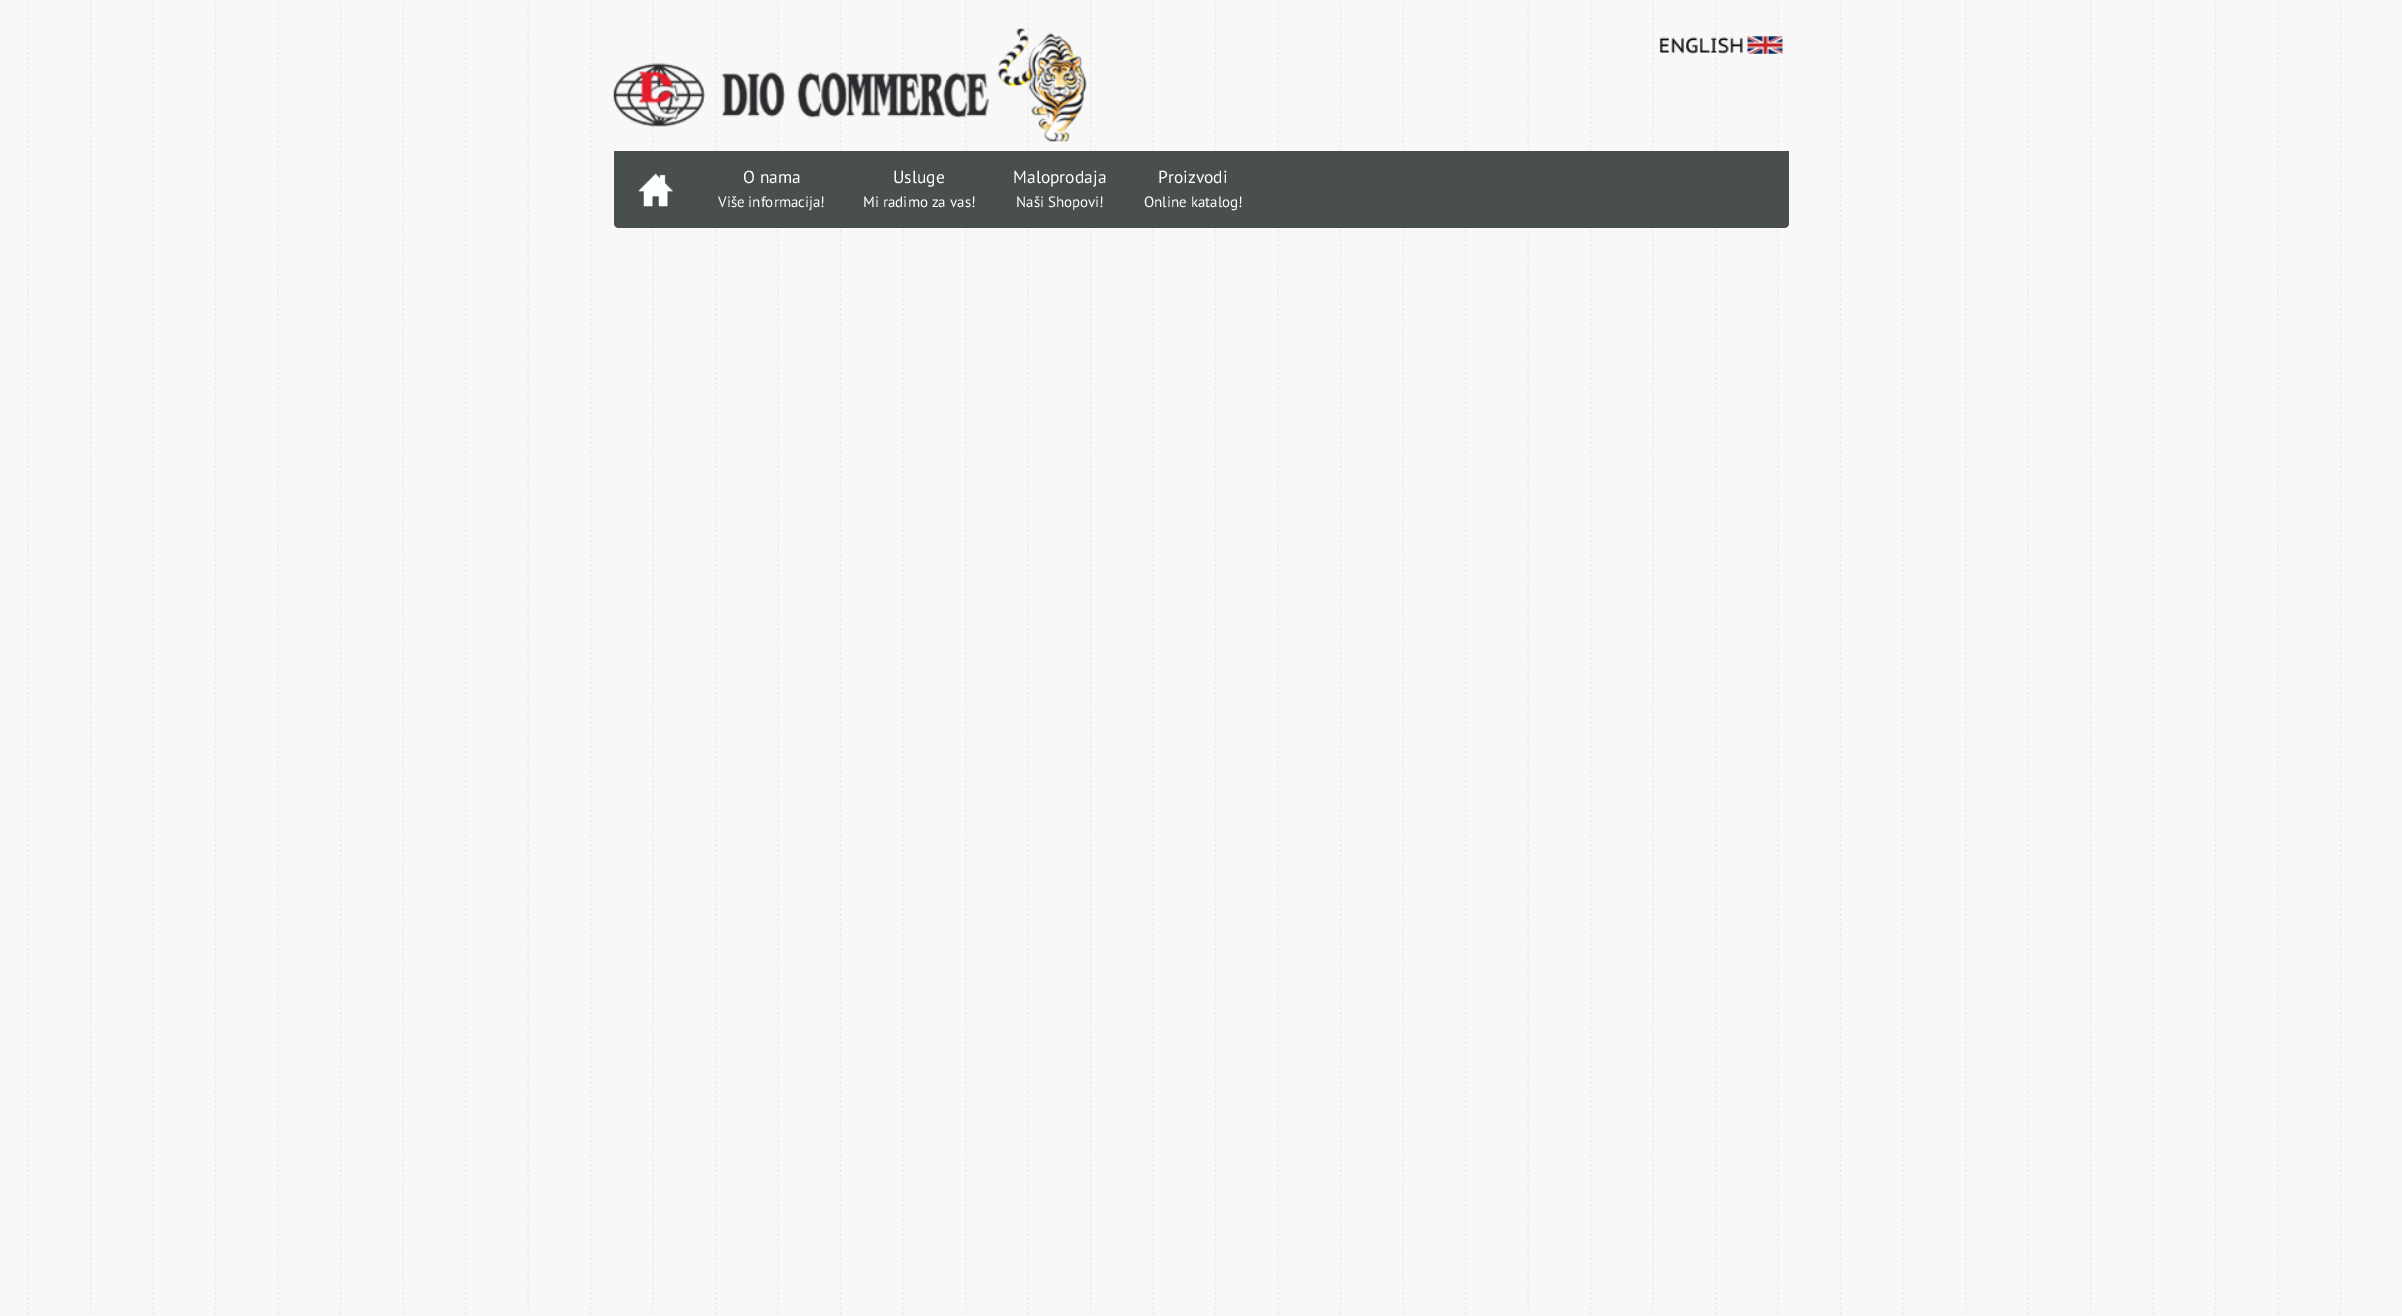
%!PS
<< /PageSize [2402 1316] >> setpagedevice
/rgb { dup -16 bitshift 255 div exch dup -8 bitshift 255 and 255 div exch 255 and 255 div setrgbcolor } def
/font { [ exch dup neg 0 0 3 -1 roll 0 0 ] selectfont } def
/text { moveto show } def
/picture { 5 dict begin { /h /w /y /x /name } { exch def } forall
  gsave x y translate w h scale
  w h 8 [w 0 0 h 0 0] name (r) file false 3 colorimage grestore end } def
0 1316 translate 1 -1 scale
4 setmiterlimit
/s1 { /PTSans-Regular 17.5 font 16#FFFFFF rgb } def
/s2 { /PTSans-Regular 15 font 16#FFFFFF rgb } def
16#FFFFFF rgb
0 0 2402 1316 rectfill
(pic1.raw) 0 0 2402 1316 picture
(pic2.raw) 613 28 474 114 picture
(pic3.raw) 1659 36 124 18 picture
16#494F4F rgb
614 151 moveto 1789 151 lineto 1789 223 lineto 1789 226 1787 228 1784 228 curveto 619 228 lineto 616 228 614 226 614 223 curveto closepath fill
(pic4.raw) 638 173 35 34 picture
s1
(O nama) 743 183 text
s2
(Više informacija!) 718 207 text
s1
(Usluge) 893 183 text
s2
(Mi radimo za vas!) 863 207 text
s1
(Maloprodaja) 1013 183 text
s2
(Naši Shopovi!) 1016 207 text
s1
(Proizvodi) 1158 183 text
s2
(Online katalog!) 1144 207 text
showpage
